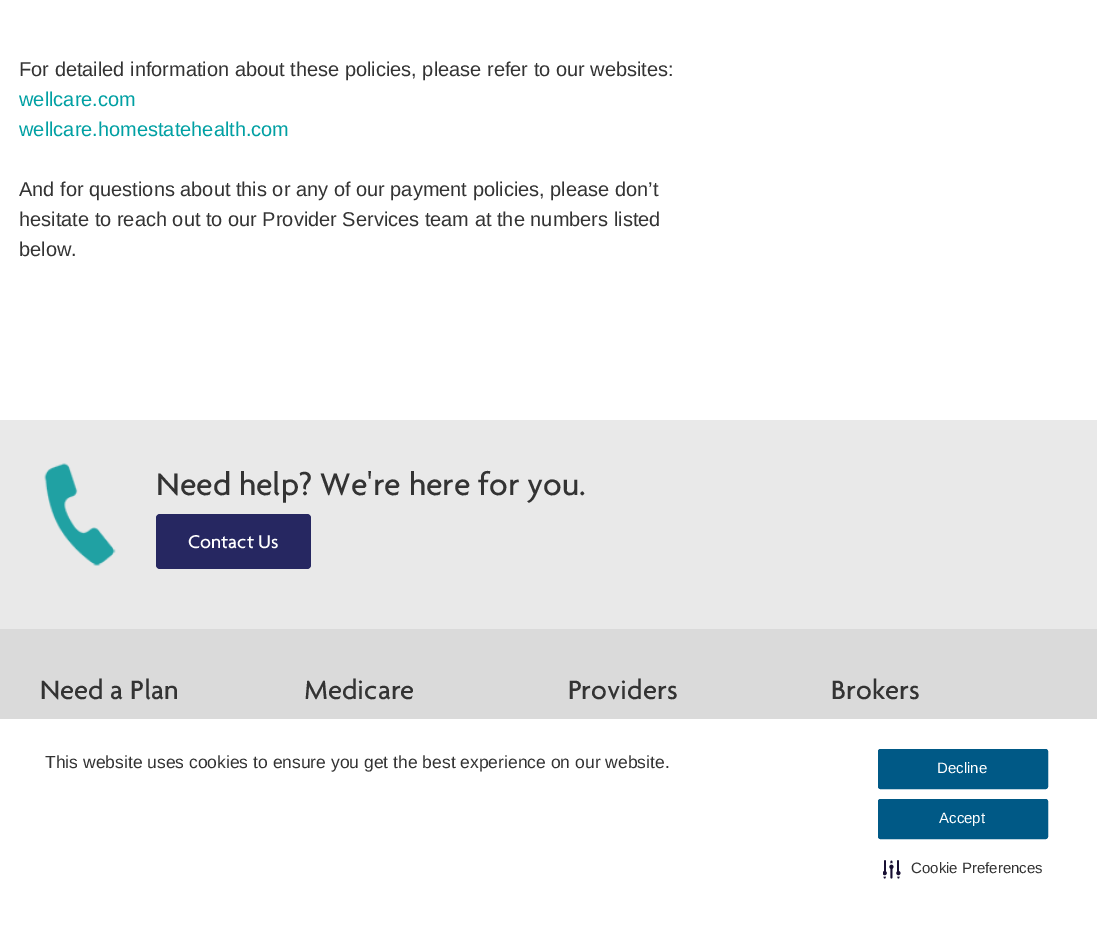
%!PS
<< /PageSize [1097 928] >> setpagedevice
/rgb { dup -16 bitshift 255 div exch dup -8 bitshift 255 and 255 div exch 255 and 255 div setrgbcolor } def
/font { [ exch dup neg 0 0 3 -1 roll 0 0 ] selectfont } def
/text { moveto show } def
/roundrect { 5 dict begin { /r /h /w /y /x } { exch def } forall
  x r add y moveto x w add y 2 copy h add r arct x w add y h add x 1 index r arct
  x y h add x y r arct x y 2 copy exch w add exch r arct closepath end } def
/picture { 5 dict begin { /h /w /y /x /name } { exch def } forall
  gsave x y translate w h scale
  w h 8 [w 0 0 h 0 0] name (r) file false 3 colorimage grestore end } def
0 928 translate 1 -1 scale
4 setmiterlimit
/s1 { /LiberationSans-Regular 20 font 16#333333 rgb } def
/s2 { /LiberationSans-Regular 20 font 16#00A0A3 rgb } def
/s3 { /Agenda-Medium 33.75 font 16#333333 rgb } def
/s4 { /Agenda-Medium 20 font 16#FFFFFF rgb } def
/s5 { /Agenda-Medium 28.75 font 16#333333 rgb } def
/s6 { /LiberationSans-Regular 17.5 font 16#333333 rgb } def
/s7 { /LiberationSans-Regular 15 font 16#FFFFFF rgb } def
/s8 { /LiberationSans-Regular 15 font 16#333333 rgb } def
16#FFFFFF rgb
0 0 1097 928 rectfill
s1
(For detailed information about these policies, please refer to our websites:) 19 76 text
s2
(wellcare.com) 19 106 text
(wellcare.homestatehealth.com) 19 136 text
s1
(And for questions about this or any of our payment policies, please don’t) 19 196 text
(hesitate to reach out to our Provider Services team at the numbers listed) 19 226 text
(below.) 19 256 text
16#E9E9E9 rgb
0 420 1097 209 rectfill
(pic1.raw) 44 463 72 103 picture
s3
(Need help? We're here for you.) 156 495 text
16#262761 rgb
156 514 155 55 4 roundrect fill
s4
(Contact Us) 188 548 text
16#DADADA rgb
0 629 1097 90 rectfill
s5
(Need a Plan) 40 699 text
(Medicare) 304 699 text
(Providers) 568 699 text
(Brokers) 831 699 text
s6
(This website uses cookies to ensure you get the best experience on our website.) 45 768 text
16#005986 rgb
878.5 749.5 169 39 2 roundrect gsave fill grestore
stroke
s7
(Decline) 937 773 text
16#005986 rgb
878.5 799.5 169 39 2 roundrect gsave fill grestore
stroke
s7
(Accept) 939 823 text
(pic2.raw) 883 860 18 19 picture
s8
(Cookie Preferences) 911 873 text
showpage
